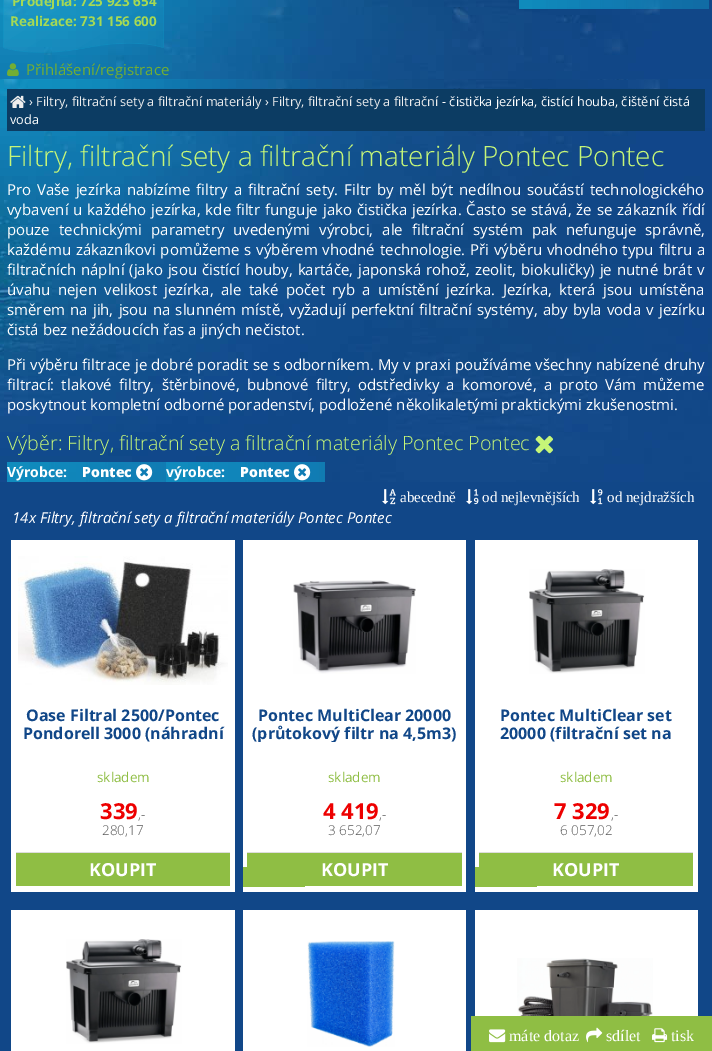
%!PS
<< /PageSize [712 1051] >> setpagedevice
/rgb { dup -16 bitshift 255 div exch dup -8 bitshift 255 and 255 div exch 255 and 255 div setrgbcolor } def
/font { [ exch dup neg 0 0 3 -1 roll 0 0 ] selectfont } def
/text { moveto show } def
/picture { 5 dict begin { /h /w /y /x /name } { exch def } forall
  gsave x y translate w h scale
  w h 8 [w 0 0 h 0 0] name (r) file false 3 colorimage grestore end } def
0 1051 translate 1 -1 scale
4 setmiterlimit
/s1 { /OpenSans-Bold 13.5 font 16#A6D954 rgb } def
/s2 { /OpenSans-Regular 15 font 16#73AE33 rgb } def
/s3 { /OpenSans-Regular 12.75 font 16#FFFFFF rgb } def
/s4 { /OpenSans-Regular 12.75 font 16#EEEEEE rgb } def
/s5 { /OpenSans-Light 28 font 16#C6F678 rgb } def
/s6 { /OpenSans-Regular 15 font 16#FFFFFF rgb } def
/s7 { /OpenSans-Light 19.7 font 16#C6F678 rgb } def
/s8 { /OpenSans-Bold 14 font 16#FFFFFF rgb } def
/s9 { /OpenSans-ExtraBold 14 font 16#FFFFFF rgb } def
/s10 { /LiberationSerif-Regular 15 font 16#FFFFFF rgb } def
/s11 { /OpenSans-Italic 15 font 16#FFFFFF rgb } def
/s12 { /OpenSans-Bold 16 font 16#114788 rgb } def
/s13 { /OpenSans-Regular 13.5 font 16#8FBE44 rgb } def
/s14 { /OpenSans-Bold 22 font 16#ED0000 rgb } def
/s15 { /OpenSans-Light 13.5 font 16#585858 rgb } def
/s16 { /OpenSans-Bold 18 font 16#FFFFFF rgb } def
/s17 { /LiberationSerif-Regular 16 font 16#FFFFFF rgb } def
16#114788 rgb
0 0 712 1051 rectfill
(pic1.raw) 0 79 712 403 picture
(pic2.raw) 0 0 660 79 picture
(pic3.raw) 3 0 161 53 picture
s1
(Prodejna: 725 923 654) 12 6 text
(Realizace: 731 156 600) 10 26 text
(pic4.raw) 519 0 190 9 picture
(pic5.raw) 7 63 12 14 picture
s2
(Přihlášení/registrace) 26 75 text
16#0C3C63 rgb
7 89 698 42 rectfill
(pic6.raw) 10 95 16 13 picture
s3
(›) 29 106 text
s4
(Filtry, filtrační sety a filtrační materiály) 36 106 text
s3
(›) 265 106 text
s4
(Filtry, filtrační sety a filtrační) 272 106 text
s3
(- čistička jezírka, čistící houba, čištění čistá) 442 106 text
(voda) 10 124 text
s5
(Filtry, filtrační sety a filtrační materiály Pontec Pontec) 7 166 text
/OpenSans-Regular 15 font
16#FFFFFF rgb
7 195 moveto 1.9 0 32 (Pro Vaše jezírka nabízíme filtry a filtrační sety. Filtr by měl být nedílnou součástí technologického) widthshow
7 215 moveto 1 0 32 (vybavení u každého jezírka, kde filtr funguje jako čistička jezírka. Často se stává, že se zákazník řídí) widthshow
7 235 moveto 5 0 32 (pouze technickými parametry uvedenými výrobci, ale filtrační systém pak nefunguje správně,) widthshow
7 255 moveto 1 0 32 (každému zákazníkovi pomůžeme s výběrem vhodné technologie. Při výběru vhodného typu filtru a) widthshow
7 275 moveto 1 0 32 (filtračních náplní \(jako jsou čistící houby, kartáče, japonská rohož, zeolit, biokuličky\) je nutné brát v) widthshow
7 295 moveto 3.4 0 32 (úvahu nejen velikost jezírka, ale také počet ryb a umístění jezírka. Jezírka, která jsou umístěna) widthshow
7 315 moveto 1.25 0 32 (směrem na jih, jsou na slunném místě, vyžadují perfektní filtrační systémy, aby byla voda v jezírku) widthshow
(čistá bez nežádoucích řas a jiných nečistot.) 7 335 text
7 370 moveto 0.4 0 32 (Při výběru filtrace je dobré poradit se s odborníkem. My v praxi používáme všechny nabízené druhy) widthshow
7 390 moveto 3.25 0 32 (filtrací: tlakové filtry, štěrbinové, bubnové filtry, odstředivky a komorové, a proto Vám můžeme) widthshow
(poskytnout kompletní odborné poradenství, podložené několikaletými praktickými zkušenostmi.) 7 410 text
s7
(Výběr: Filtry, filtrační sety a filtrační materiály Pontec Pontec) 7 450 text
(pic7.raw) 535 435 18 19 picture
(pic8.raw) 7 462 159 20 picture
s8
(Výrobce:) 7 477 text
s9
(Pontec) 82 477 text
(pic9.raw) 136 464 17 17 picture
(pic10.raw) 166 462 159 20 picture
s8
(výrobce:) 166 477 text
s9
(Pontec) 240 477 text
(pic11.raw) 294 464 17 17 picture
(pic12.raw) 382 489 14 16 picture
s10
(abecedně) 400 502 text
(pic13.raw) 466 489 13 16 picture
(od nejlevnějších) 482 502 text
(pic14.raw) 590 489 13 16 picture
(od nejdražších) 607 502 text
s11
(14x Filtry, filtrační sety a filtrační materiály Pontec Pontec) 12 523 text
11 540 224 352 rectfill
(pic15.raw) 18 556 210 129 picture
s12
(Oase Filtral 2500/Pontec) 26 721 text
(Pondorell 3000 \(náhradní) 23 739 text
s13
(skladem) 97 782 text
s14
(339) 100 819 text
s15
(,-) 138 819 text
(280,17) 102 835 text
16#8FBE44 rgb
16 853 214 33 rectfill
16#DDDDDD rgb
16 852 214 1 rectfill
s16
(KOUPIT) 89 876 text
243 540 223 352 rectfill
(pic16.raw) 293 580 123 94 picture
s12
(Pontec MultiClear 20000) 258 721 text
gsave
250 706 209 36 rectclip
(\(průtokový filtr na 4,5m3\)) 252 739 text
grestore
16#8FBE44 rgb
243 867 62 20 rectfill
s13
(skladem) 328 782 text
s14
(4 419) 323 819 text
s15
(,-) 379 819 text
(3 652,07) 328 835 text
16#8FBE44 rgb
247 853 215 33 rectfill
16#DDDDDD rgb
247 852 215 1 rectfill
s16
(KOUPIT) 321 876 text
475 540 223 352 rectfill
(pic17.raw) 529 569 116 105 picture
s12
(Pontec MultiClear set) 500 721 text
(20000 \(filtrační set na) 500 739 text
16#8FBE44 rgb
475 867 62 20 rectfill
s13
(skladem) 560 782 text
s14
(7 329) 554 819 text
s15
(,-) 611 819 text
(6 057,02) 560 835 text
16#8FBE44 rgb
479 853 214 33 rectfill
16#DDDDDD rgb
479 852 214 1 rectfill
s16
(KOUPIT) 552 876 text
11 910 224 141 rectfill
(pic17.raw) 66 939 116 105 picture
243 910 223 141 rectfill
(pic18.raw) 307 941 88 106 picture
475 910 223 106 rectfill
(pic19.raw) 517 958 136 58 picture
16#8FBE44 rgb
471 1016 241 35 rectfill
(pic20.raw) 489 1029 17 14 picture
s17
(máte dotaz) 509 1041 text
(pic21.raw) 586 1027 17 16 picture
(sdílet) 606 1041 text
(pic22.raw) 652 1028 16 15 picture
(tisk) 671 1041 text
showpage
